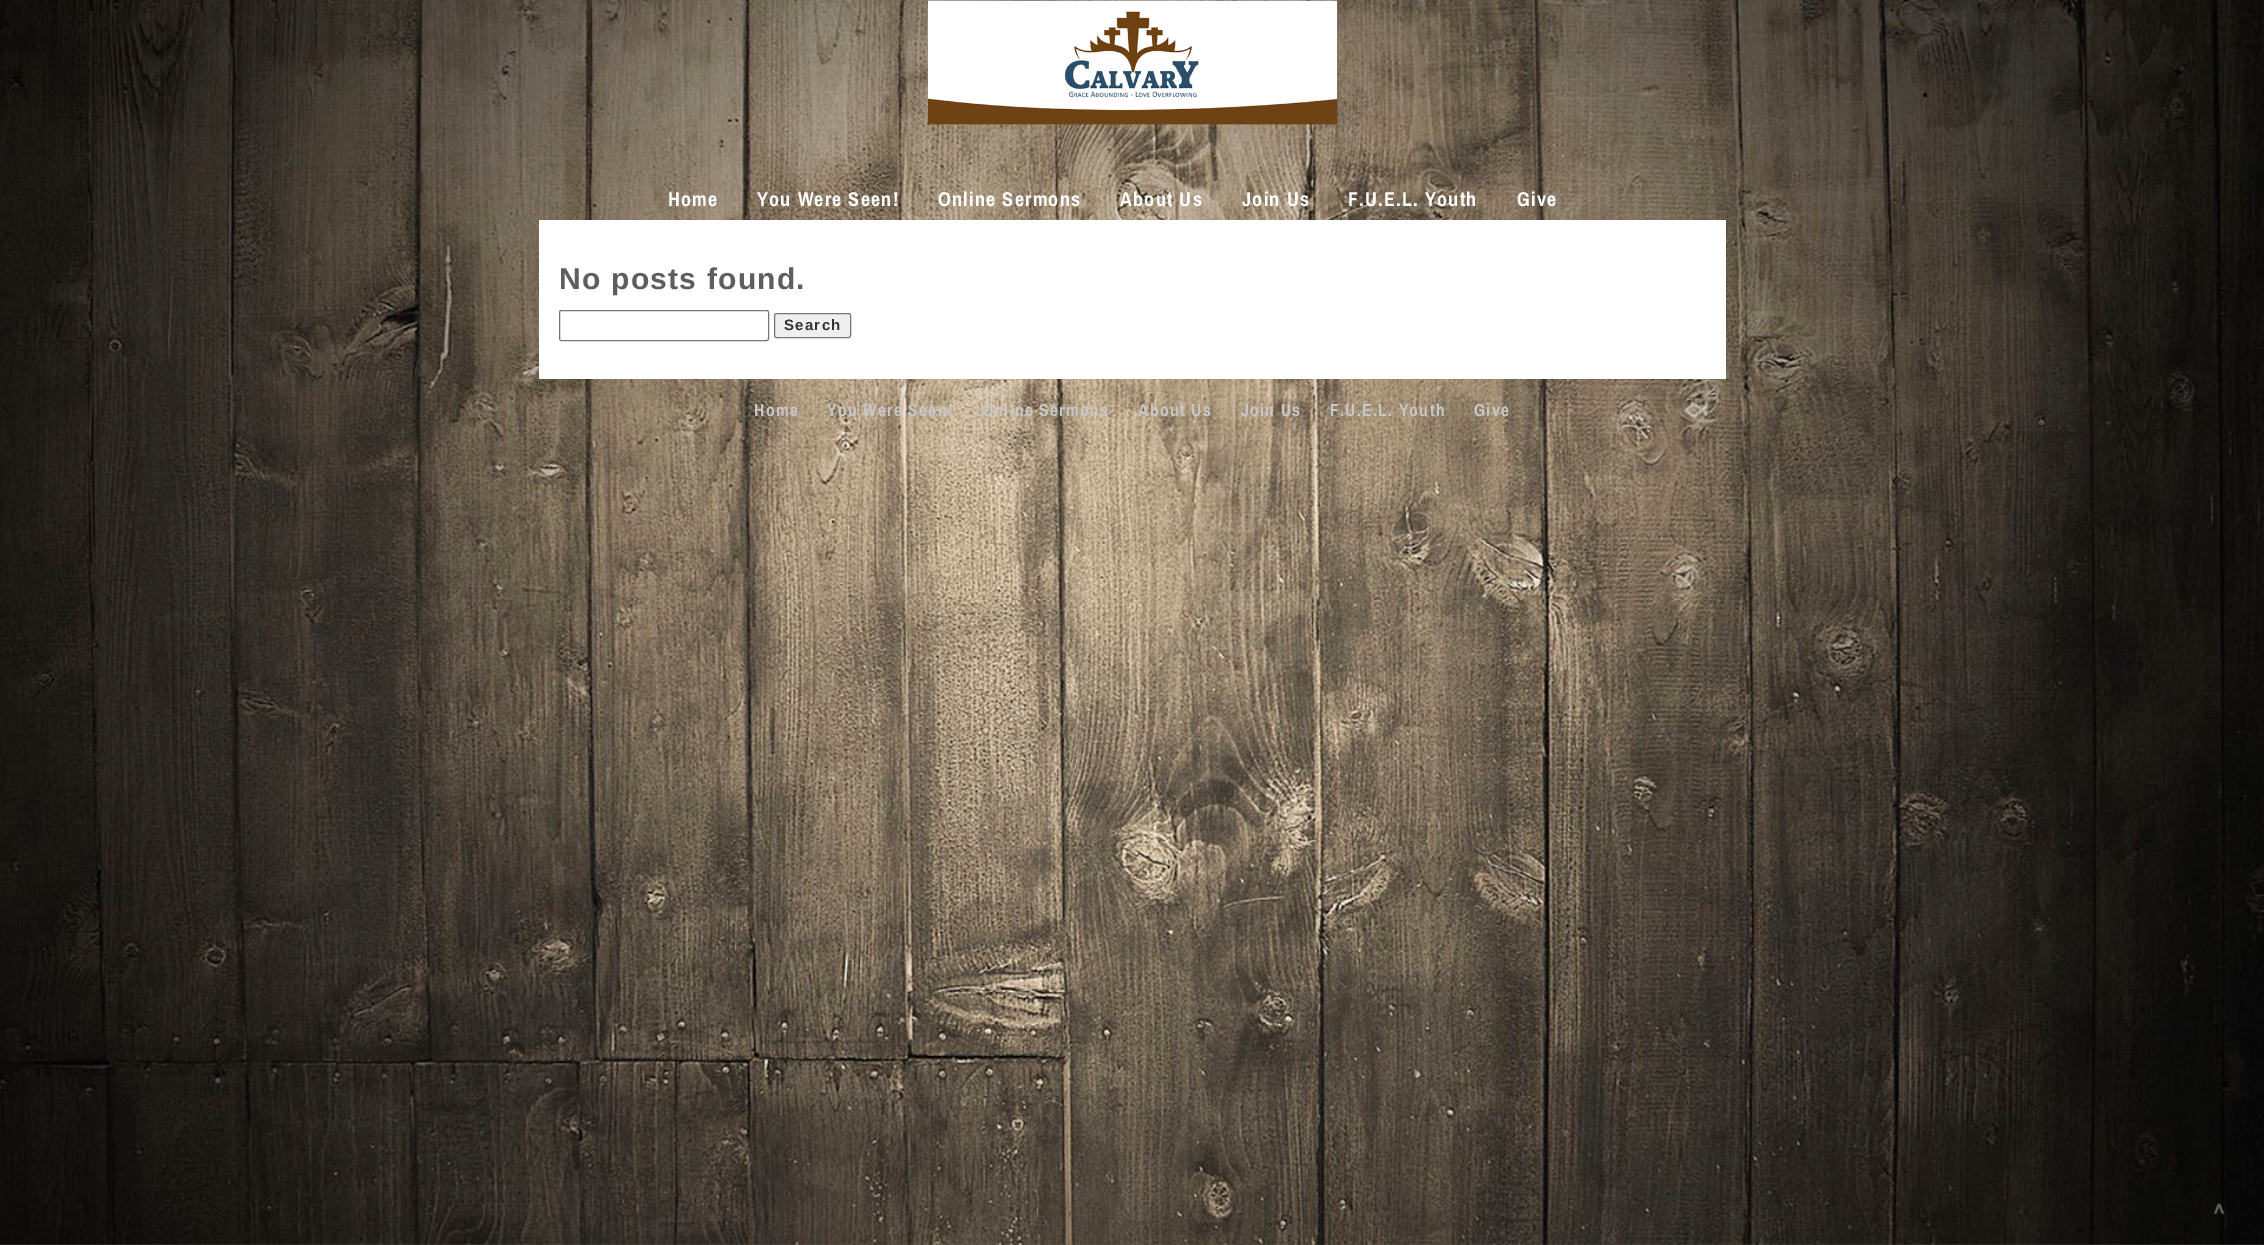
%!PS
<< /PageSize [2264 1245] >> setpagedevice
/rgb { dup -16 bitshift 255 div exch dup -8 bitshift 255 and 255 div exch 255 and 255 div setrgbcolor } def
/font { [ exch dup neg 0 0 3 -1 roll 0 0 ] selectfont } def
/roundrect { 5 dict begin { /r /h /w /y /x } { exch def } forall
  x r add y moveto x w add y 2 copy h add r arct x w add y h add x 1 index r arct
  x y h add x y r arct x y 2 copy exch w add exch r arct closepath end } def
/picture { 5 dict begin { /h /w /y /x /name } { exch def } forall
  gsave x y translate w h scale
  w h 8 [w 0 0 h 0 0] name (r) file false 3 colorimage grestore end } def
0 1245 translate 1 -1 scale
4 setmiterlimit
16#FFFFFF rgb
0 0 2264 1245 rectfill
(pic1.raw) 0 0 2264 1245 picture
(pic2.raw) 928 0 409 125 picture
/ArchivoNarrow-Bold 20 font
668 206 moveto 1.25 0 (Home) ashow
757 206 moveto 1.25 0 (You Were Seen!) ashow
938 206 moveto 1.25 0 (Online Sermons) ashow
1120 206 moveto 1.25 0 (About Us) ashow
1242 206 moveto 1.25 0 (Join Us) ashow
1348 206 moveto 1.25 0 (F.U.E.L. Youth) ashow
1517 206 moveto 1.25 0 (Give) ashow
539 220 1187 159 rectfill
/LiberationSans-Bold 30 font
16#5E5E5E rgb
559 289 moveto 1.25 0 (No posts found.) ashow
16#767676 rgb
559.5 310.5 209 30 2 roundrect stroke
16#EFEFEF rgb
774.5 313.5 76 24 2 roundrect gsave fill grestore
16#767676 rgb
stroke
/LiberationSans-Bold 15 font
16#333333 rgb
784 330 moveto 1.25 0 (Search) ashow
/ArchivoNarrow-Bold 17.5 font
16#C8C7C7 rgb
754 416 moveto 1.25 0 (Home) ashow
827 416 moveto 1.25 0 (You Were Seen!) ashow
982 416 moveto 1.25 0 (Online Sermons) ashow
1138 416 moveto 1.25 0 (About Us) ashow
1241 416 moveto 1.25 0 (Join Us) ashow
1330 416 moveto 1.25 0 (F.U.E.L. Youth) ashow
1474 416 moveto 1.25 0 (Give) ashow
(pic3.raw) 1683 402 24 16 picture
/ArchivoNarrow-Bold 25 font
16#5E5E5E rgb
2213 1221 moveto 1.25 0 (^) ashow
showpage
